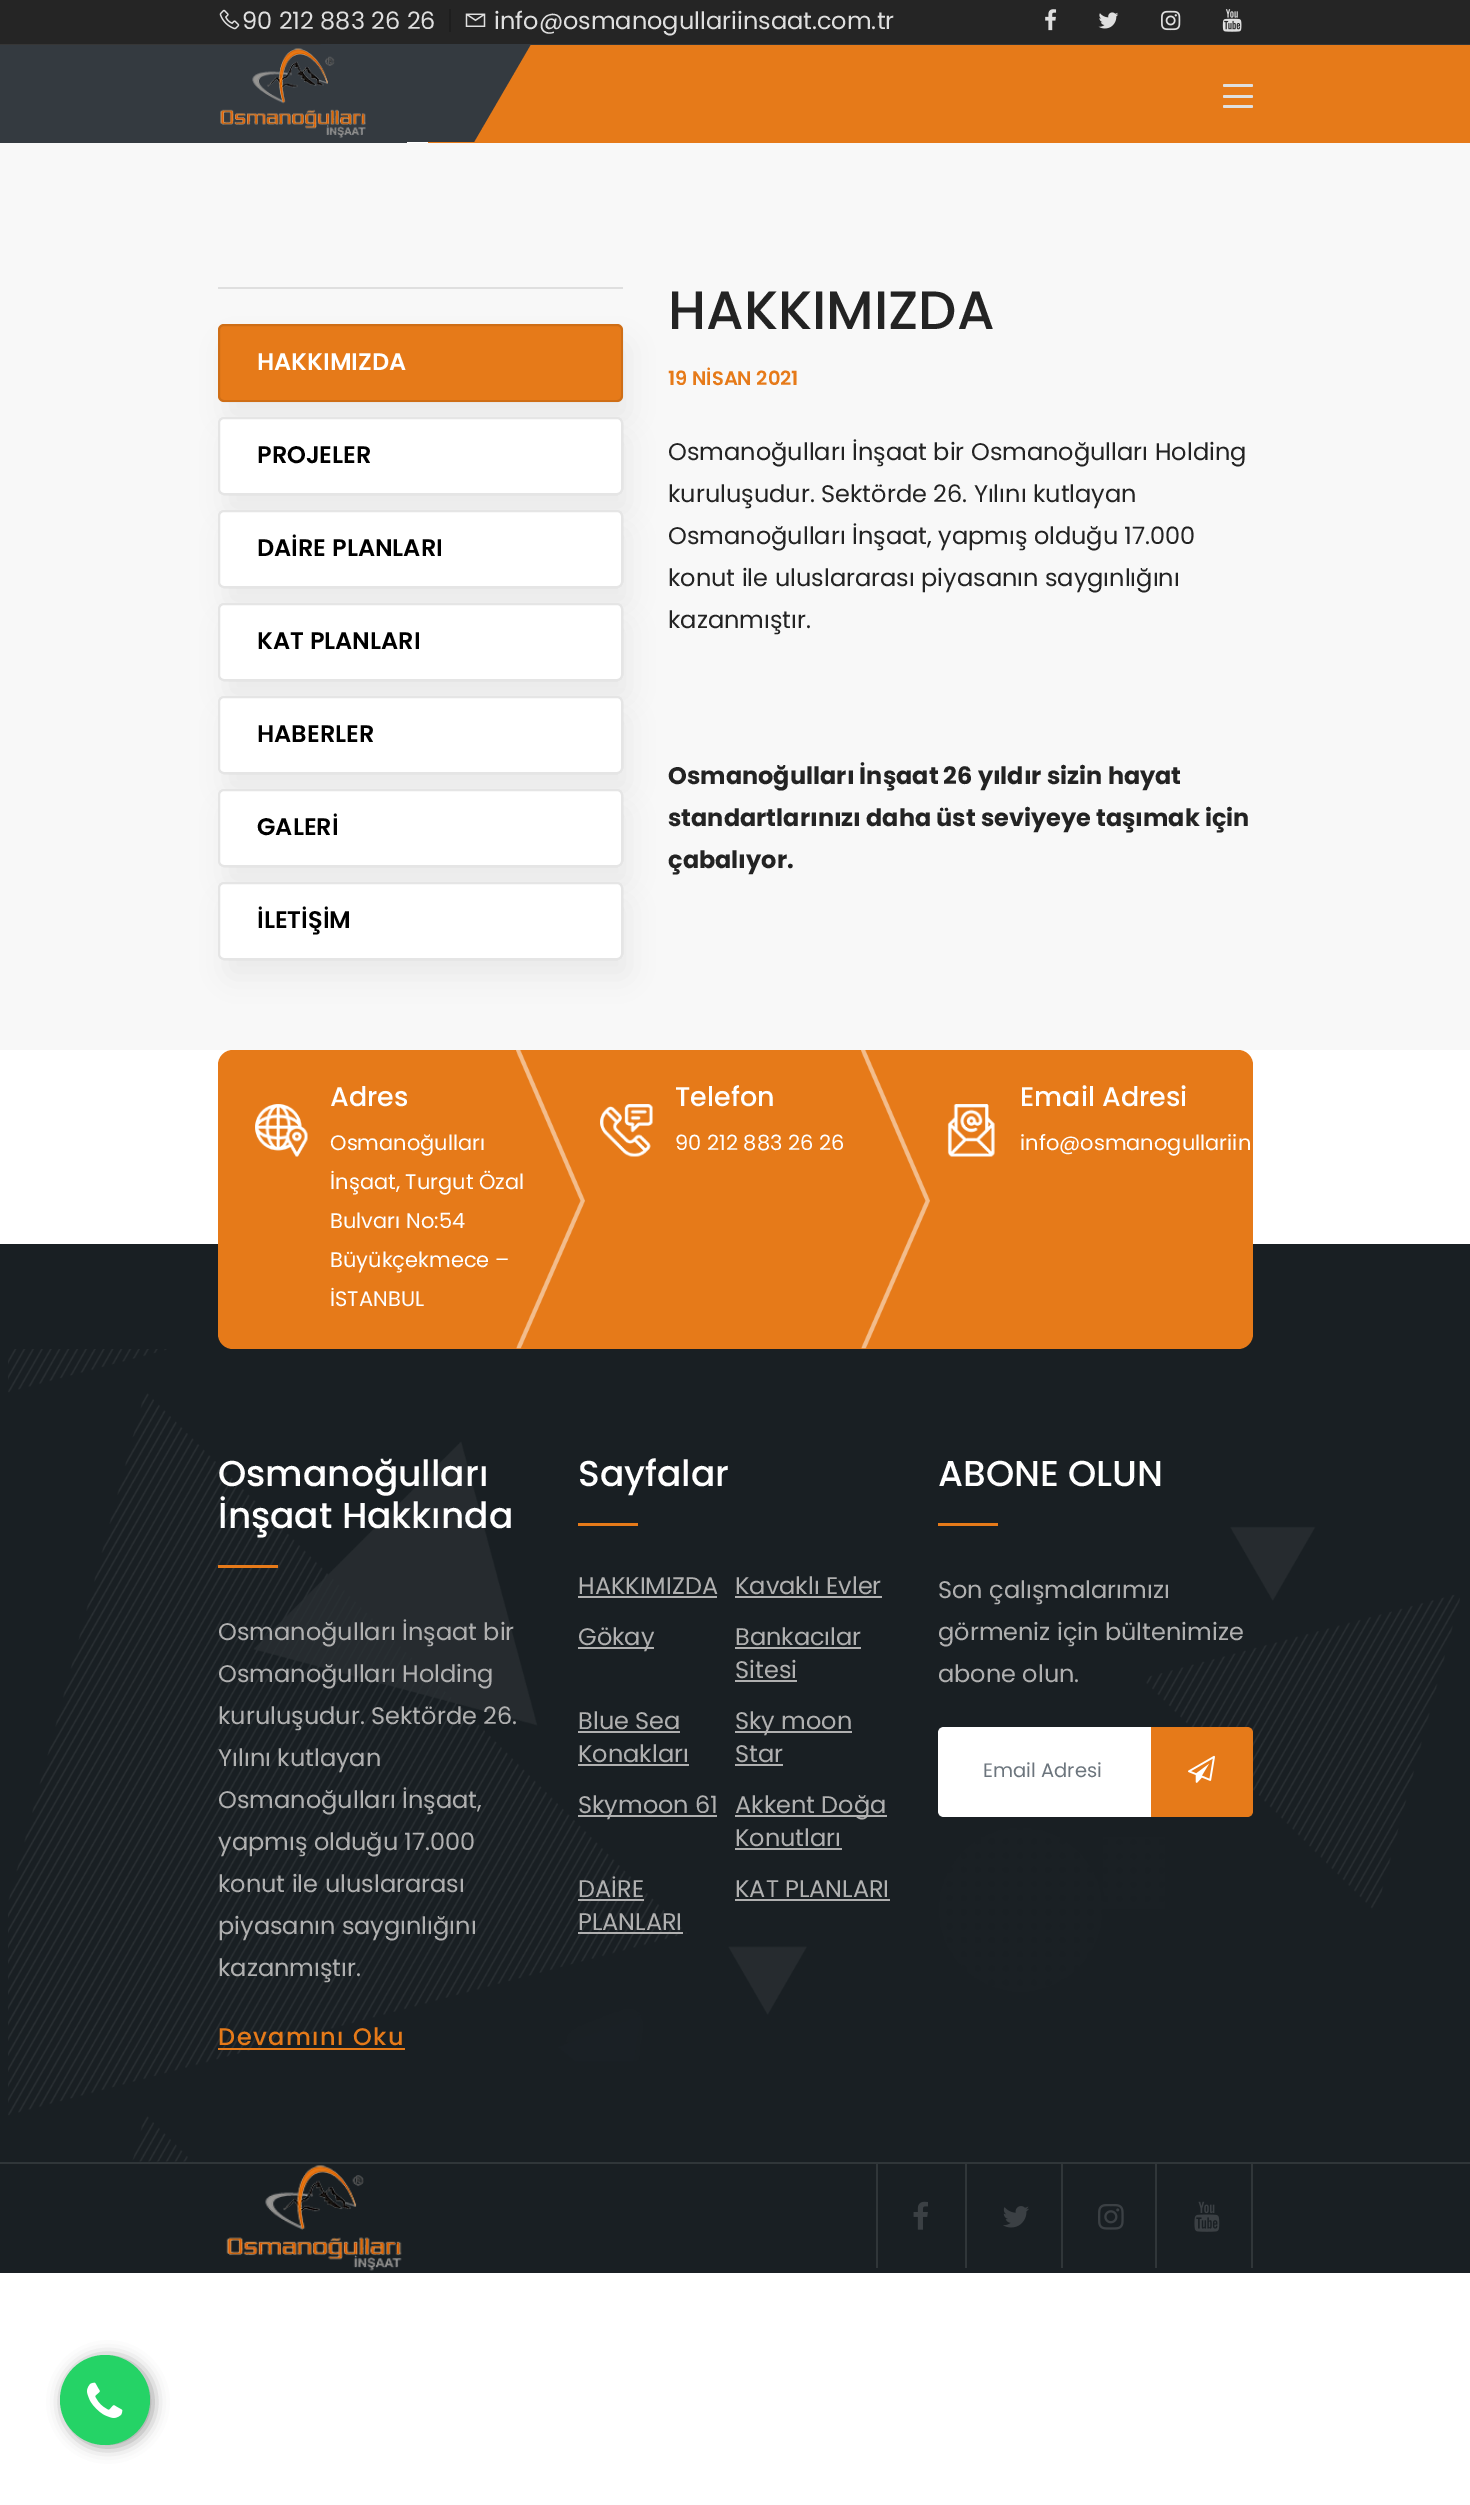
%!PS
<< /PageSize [1470 2505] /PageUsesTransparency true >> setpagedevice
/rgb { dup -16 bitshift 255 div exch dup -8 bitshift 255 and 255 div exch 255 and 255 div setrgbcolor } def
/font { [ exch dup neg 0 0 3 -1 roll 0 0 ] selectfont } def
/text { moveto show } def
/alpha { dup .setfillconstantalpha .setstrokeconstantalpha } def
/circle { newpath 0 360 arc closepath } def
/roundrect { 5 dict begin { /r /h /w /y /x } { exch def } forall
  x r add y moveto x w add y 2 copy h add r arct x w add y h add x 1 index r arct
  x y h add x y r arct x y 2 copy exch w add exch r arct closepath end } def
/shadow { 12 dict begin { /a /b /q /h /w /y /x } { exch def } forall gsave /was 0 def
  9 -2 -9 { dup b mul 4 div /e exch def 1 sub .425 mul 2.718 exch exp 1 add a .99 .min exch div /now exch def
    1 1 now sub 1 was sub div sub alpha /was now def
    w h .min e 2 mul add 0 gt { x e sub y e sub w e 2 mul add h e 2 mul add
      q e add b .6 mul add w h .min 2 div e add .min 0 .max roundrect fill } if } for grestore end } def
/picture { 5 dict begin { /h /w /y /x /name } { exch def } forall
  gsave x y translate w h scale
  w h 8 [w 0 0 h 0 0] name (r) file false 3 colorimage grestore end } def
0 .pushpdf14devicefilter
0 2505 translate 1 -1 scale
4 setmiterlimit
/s1 { /Poppins-Regular 24 font 16#DFDFDF rgb } def
/s2 { /Poppins-SemiBold 24 font 16#FFFFFF rgb } def
/s3 { /Poppins-SemiBold 24 font 16#000000 rgb } def
/s4 { /Poppins-Medium 54 font 16#232323 rgb } def
/s5 { /Poppins-SemiBold 19.5 font 16#E67A19 rgb } def
/s6 { /Poppins-Regular 24 font 16#232323 rgb } def
/s7 { /Poppins-Bold 24 font 16#232323 rgb } def
/s8 { /Poppins-Medium 27 font 16#FFFFFF rgb } def
/s9 { /Poppins-Regular 21 font 16#FFFFFF rgb } def
/s10 { /Poppins-Medium 36 font 16#FFFFFF rgb } def
/s11 { /Poppins-Regular 24 font 16#B0B0B0 rgb } def
/s12 { /Poppins-Regular 19.5 font 16#6C757D rgb } def
16#FFFFFF rgb
0 0 1470 2505 rectfill
16#F8F8F8 rgb
0 143 1470 907 rectfill
16#252525 rgb
0 0 1470 44 rectfill
16#363636 rgb
0 44 1470 1 rectfill
(pic1.raw) 219 9 21 21 picture
s1
(90 212 883 26 26) 242 29 text
16#1E1E1E rgb
449 9 2 23 rectfill
(pic2.raw) 465 13 21 14 picture
s1
(info@osmanogullariinsaat.com.tr) 494 29 text
(pic3.raw) 1045 9 12 22 picture
(pic4.raw) 1098 12 21 17 picture
(pic5.raw) 1161 10 20 21 picture
(pic6.raw) 1222 9 20 23 picture
16#E67A19 rgb
428 45 1042 98 rectfill
16#343A40 rgb
321 44 moveto 531 44 lineto 474 142 lineto 264 142 lineto closepath fill
0 45 407 98 rectfill
(pic7.raw) 220 48 146 90 picture
16#DFDFDF rgb
1223 84 30 3 1.5 roundrect fill
1223 95 30 3 1.5 roundrect fill
1223 105 30 3 1.5 roundrect fill
218 287 405 2 rectfill
16#000000 rgb
225 342 405 78 6 15 0.05 shadow
16#E67A19 rgb
218 324 405 78 6 roundrect fill
0.1 alpha
16#000000 rgb
2 setlinewidth
219 325 403 76 5 roundrect stroke
1 alpha
s2
(HAKKIMIZDA) 257 370 text
16#000000 rgb
225 435 405 78 6 15 0.05 shadow
16#FFFFFF rgb
218 417 405 78 6 roundrect fill
0.1 alpha
16#000000 rgb
219 418 403 76 5 roundrect stroke
1 alpha
(PROJELER) 257 463 text
225 528 405 78 6 15 0.05 shadow
16#FFFFFF rgb
218 510 405 78 6 roundrect fill
0.1 alpha
16#000000 rgb
219 511 403 76 5 roundrect stroke
1 alpha
(DAİRE PLANLARI) 257 556 text
225 621 405 78 6 15 0.05 shadow
16#FFFFFF rgb
218 603 405 78 6 roundrect fill
0.1 alpha
16#000000 rgb
219 604 403 76 5 roundrect stroke
1 alpha
(KAT PLANLARI) 257 649 text
225 714 405 78 6 15 0.05 shadow
16#FFFFFF rgb
218 696 405 78 6 roundrect fill
0.1 alpha
16#000000 rgb
219 697 403 76 5 roundrect stroke
1 alpha
(HABERLER) 257 742 text
225 807 405 78 6 15 0.05 shadow
16#FFFFFF rgb
218 789 405 78 6 roundrect fill
0.1 alpha
16#000000 rgb
219 790 403 76 5 roundrect stroke
1 alpha
(GALERİ) 257 835 text
225 900 405 78 6 15 0.05 shadow
16#FFFFFF rgb
218 882 405 78 6 roundrect fill
0.1 alpha
16#000000 rgb
219 883 403 76 5 roundrect stroke
1 alpha
(İLETİŞİM) 257 928 text
s4
(HAKKIMIZDA) 668 329 text
s5
(19 NİSAN 2021) 668 385 text
s6
(Osmanoğulları İnşaat bir Osmanoğulları Holding) 668 460 text
(kuruluşudur. Sektörde 26. Yılını kutlayan) 668 502 text
(Osmanoğulları İnşaat, yapmış olduğu 17.000) 668 544 text
(konut ile uluslararası piyasanın saygınlığını) 668 586 text
(kazanmıştır.) 668 628 text
s7
(Osmanoğulları İnşaat 26 yıldır sizin hayat) 668 784 text
(standartlarınızı daha üst seviyeye taşımak için) 668 826 text
(çabalıyor.) 668 868 text
16#191F23 rgb
0 1244 1470 918 rectfill
16#E67A19 rgb
218 1050 1035 299 15 roundrect fill
s8
(Adres) 330 1106 text
(pic8.raw) 516 1050 69 299 picture
(pic9.raw) 255 1104 53 53 picture
s9
(Osmanoğulları) 330 1150 text
(İnşaat, Turgut Özal) 330 1189 text
(Bulvarı No:54) 330 1228 text
(Büyükçekmece –) 330 1267 text
(İSTANBUL) 330 1306 text
s8
(Telefon) 675 1106 text
(pic8.raw) 861 1050 69 299 picture
(pic10.raw) 600 1104 53 53 picture
s9
(90 212 883 26 26) 675 1150 text
s8
(Email Adresi) 1020 1106 text
(pic11.raw) 947 1104 48 53 picture
s9
(info@osmanogullariin) 1020 1150 text
(pic12.raw) 8 1349 1452 813 picture
s10
(Osmanoğulları) 218 1486 text
(İnşaat Hakkında) 218 1528 text
16#E67A19 rgb
218 1565 60 3 rectfill
s11
(Osmanoğulları İnşaat bir) 218 1640 text
(Osmanoğulları Holding) 218 1682 text
(kuruluşudur. Sektörde 26.) 218 1724 text
(Yılını kutlayan) 218 1766 text
(Osmanoğulları İnşaat,) 218 1808 text
(yapmış olduğu 17.000) 218 1850 text
(konut ile uluslararası) 218 1892 text
(piyasanın saygınlığını) 218 1934 text
(kazanmıştır.) 218 1976 text
/Poppins-Medium 24 font
16#E67A19 rgb
218 2045 moveto 1.5 0 (Devamını Oku) ashow
218 2048 187 2 rectfill
s10
(Sayfalar) 578 1486 text
16#E67A19 rgb
578 1523 60 3 rectfill
s11
(HAKKIMIZDA) 578 1594 text
578 1596 139 2 rectfill
(Kavaklı Evler) 735 1594 text
735 1596 147 2 rectfill
578 1647 76 2 rectfill
(Gökay) 578 1645 text
(Bankacılar) 735 1645 text
735 1647 126 2 rectfill
(Sitesi) 735 1678 text
735 1680 62 2 rectfill
(Blue Sea) 578 1729 text
578 1731 102 2 rectfill
(Konakları) 578 1762 text
578 1764 111 2 rectfill
735 1731 117 2 rectfill
(Sky moon) 735 1729 text
(Star) 735 1762 text
735 1764 48 2 rectfill
578 1815 139 2 rectfill
(Skymoon 61) 578 1813 text
735 1815 152 2 rectfill
(Akkent Doğa) 735 1813 text
(Konutları) 735 1846 text
735 1848 107 2 rectfill
(DAİRE) 578 1897 text
578 1899 66 2 rectfill
(PLANLARI) 578 1930 text
578 1932 105 2 rectfill
(KAT PLANLARI) 735 1897 text
735 1899 155 2 rectfill
s10
(ABONE OLUN) 938 1486 text
16#E67A19 rgb
938 1523 60 3 rectfill
s11
(Son çalışmalarımızı) 938 1598 text
(görmeniz için bültenimize) 938 1640 text
(abone olun.) 938 1682 text
16#FFFFFF rgb
944 1727 moveto 1151 1727 lineto 1151 1817 lineto 944 1817 lineto 940.5 1817 938 1814.5 938 1811 curveto 938 1733 lineto 938 1729.5 940.5 1727 944 1727 curveto closepath fill
s12
(Email Adresi) 983 1777 text
16#E67A19 rgb
1151 1727 moveto 1247 1727 lineto 1250.5 1727 1253 1729.5 1253 1733 curveto 1253 1811 lineto 1253 1814.5 1250.5 1817 1247 1817 curveto 1151 1817 lineto closepath fill
(pic13.raw) 1188 1755 27 28 picture
16#191F23 rgb
0 2164 1470 109 rectfill
16#303639 rgb
0 2162 1470 2 rectfill
(pic14.raw) 226 2165 176 106 picture
965 2163 2 105 rectfill
876 2163 2 105 rectfill
(pic15.raw) 913 2201 15 29 picture
1061 2163 2 105 rectfill
(pic16.raw) 1003 2206 26 22 picture
1155 2163 2 105 rectfill
(pic17.raw) 1098 2204 26 26 picture
1251 2163 2 105 rectfill
(pic18.raw) 1194 2201 26 31 picture
16#999999 rgb
63 2357 90 90 45 7.5 1 shadow
16#25D366 rgb
105 2400 45 circle fill
(pic19.raw) 87 2382 36 36 picture
.poppdf14devicefilter showpage
